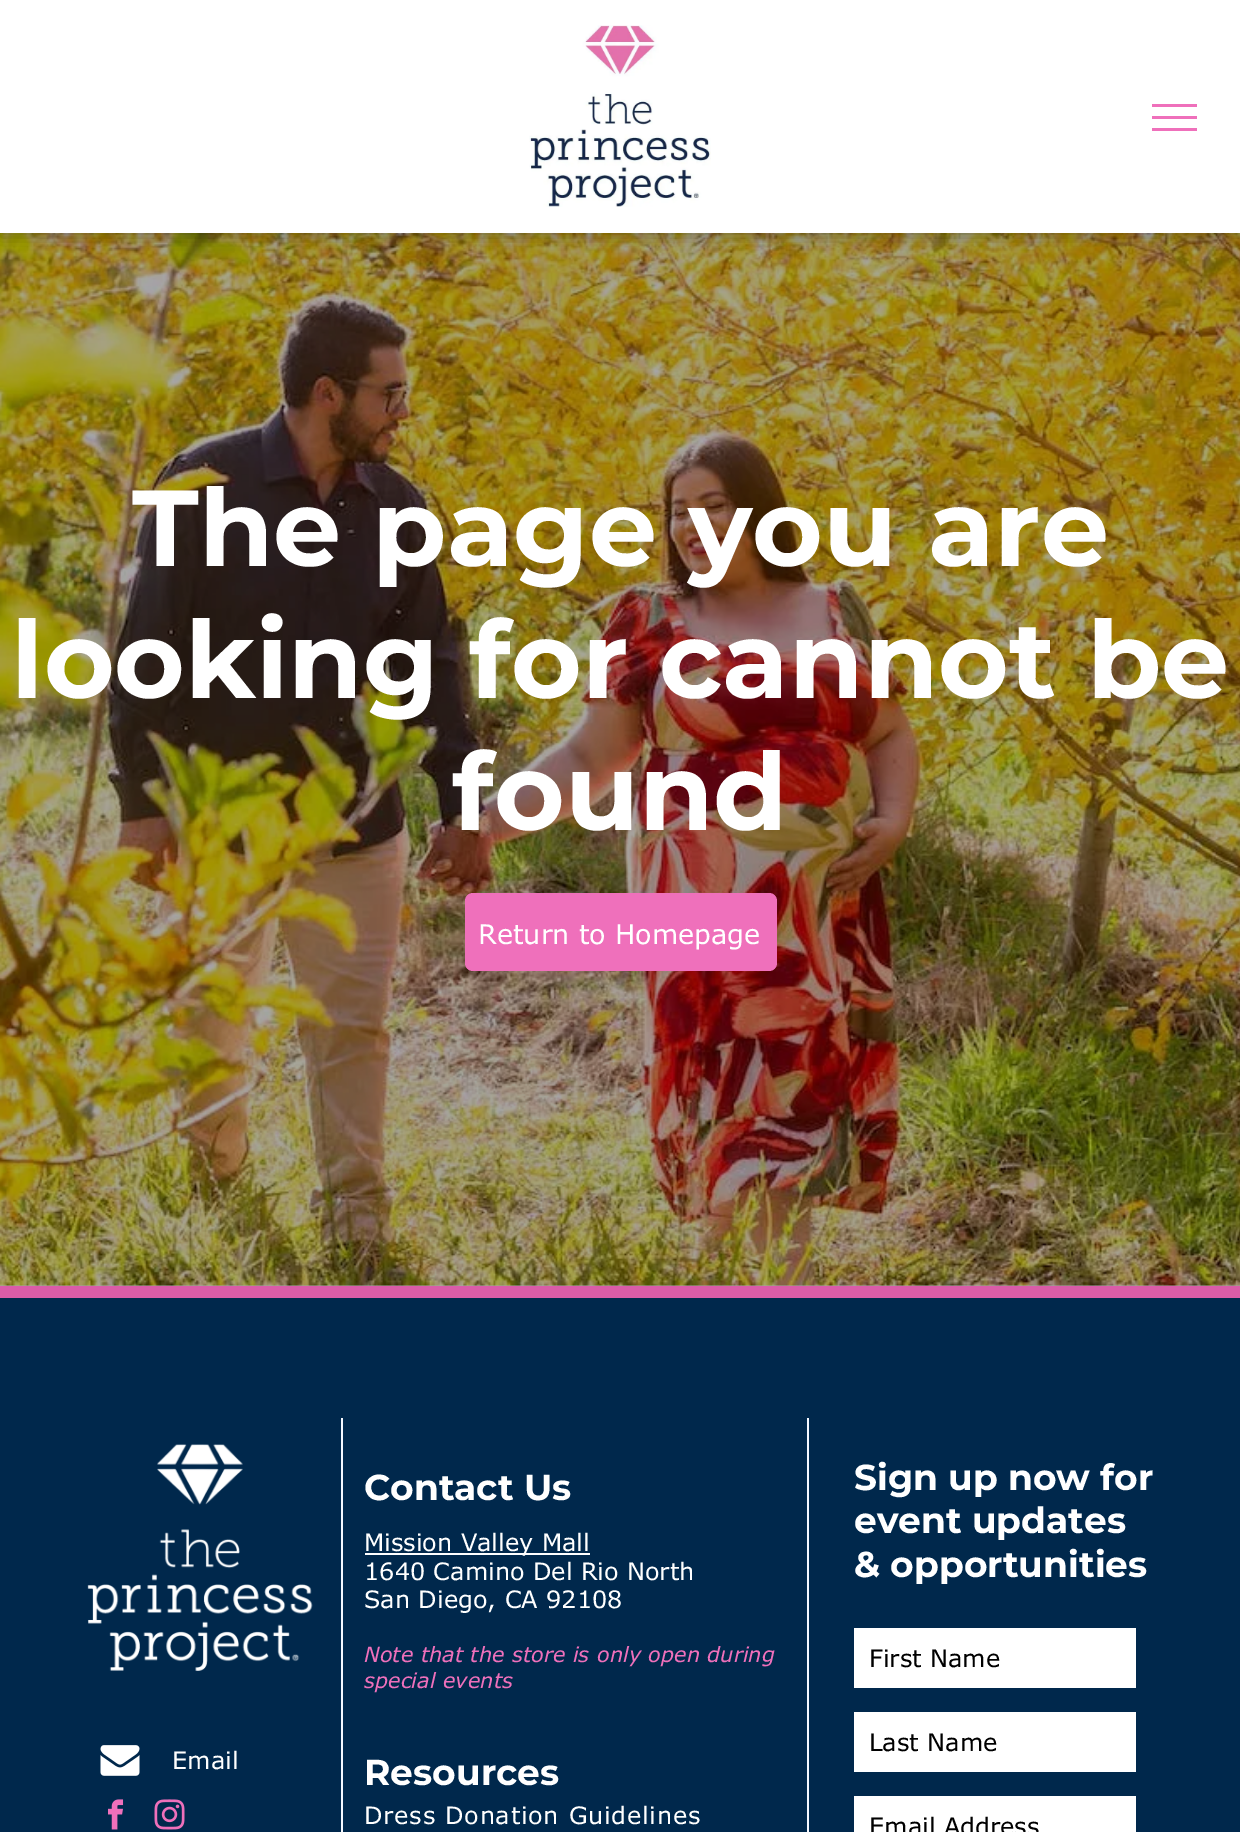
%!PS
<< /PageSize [1240 1832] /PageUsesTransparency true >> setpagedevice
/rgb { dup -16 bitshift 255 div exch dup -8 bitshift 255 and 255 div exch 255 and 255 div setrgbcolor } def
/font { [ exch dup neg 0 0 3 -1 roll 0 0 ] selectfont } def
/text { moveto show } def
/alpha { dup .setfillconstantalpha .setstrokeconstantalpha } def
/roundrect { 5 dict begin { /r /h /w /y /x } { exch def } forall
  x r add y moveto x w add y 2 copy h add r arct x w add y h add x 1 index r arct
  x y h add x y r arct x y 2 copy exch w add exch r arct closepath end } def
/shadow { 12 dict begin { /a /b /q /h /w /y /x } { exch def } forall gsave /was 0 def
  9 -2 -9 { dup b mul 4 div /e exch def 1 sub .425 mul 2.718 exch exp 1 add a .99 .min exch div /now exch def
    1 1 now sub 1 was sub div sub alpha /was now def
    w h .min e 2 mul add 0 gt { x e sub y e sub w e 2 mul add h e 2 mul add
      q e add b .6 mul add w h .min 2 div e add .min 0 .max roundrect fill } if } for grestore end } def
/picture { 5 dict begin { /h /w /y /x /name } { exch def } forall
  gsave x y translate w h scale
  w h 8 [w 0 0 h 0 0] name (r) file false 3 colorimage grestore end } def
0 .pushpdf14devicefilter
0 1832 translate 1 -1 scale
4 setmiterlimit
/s1 { /Montserrat-Bold 108 font 16#FFFFFF rgb } def
/s2 { /Verdana-Regular 27 font 16#FFFFFF rgb } def
/s3 { /Verdana-Regular 24 font 16#FFFFFF rgb } def
/s4 { /Montserrat-Bold 36 font 16#FFFFFF rgb } def
/s5 { /Verdana-Italic 21 font 16#EF70BB rgb } def
/s6 { /Verdana-Regular 24 font 16#000000 rgb } def
16#A6A6A6 rgb
0 0 1240 1832 rectfill
(pic2.raw) 0 233 1240 1053 picture
16#000000 rgb
0 5 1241 232 0 8 0.25 shadow
16#FFFFFF rgb
0 0 1240 233 rectfill
(pic1.raw) 529 25 182 182 picture
16#EF70BB rgb
1152 104 45 3 rectfill
1152 116 45 3 rectfill
1152 128 45 3 rectfill
s1
(The page you are) 132 566 text
(looking for cannot be) 11 698 text
(found) 452 830 text
16#EF70BB rgb
465 893 312 78 8 roundrect fill
s2
(Return to Homepage) 478 944 text
16#00284C rgb
0 1298 1240 534 rectfill
16#DA5CA8 rgb
0 1286 1240 12 rectfill
(pic3.raw) 87 1444 226 227 picture
(pic4.raw) 100 1745 40 31 picture
s3
(Email) 172 1769 text
(pic5.raw) 108 1799 16 31 picture
(pic6.raw) 154 1799 31 31 picture
16#F5F8FF rgb
341 1418 2 414 rectfill
s4
(Contact Us) 364 1500 text
365 1553 225 2 rectfill
s3
(Mission Valley Mall) 364 1551 text
(1640 Camino Del Rio North) 364 1580 text
(San Diego, CA 92108) 364 1608 text
s5
(Note that the store is only open during) 364 1662 text
(special events) 364 1688 text
s4
(Resources) 364 1785 text
/Verdana-Regular 24 font
364 1824 moveto 0.75 0 (Dress Donation Guidelines) ashow
16#F5F8FF rgb
807 1418 2 414 rectfill
s4
(Sign up now for) 854 1490 text
(event updates) 854 1533 text
(& opportunities) 854 1577 text
854 1628 282 60 rectfill
s6
(First Name) 869 1667 text
16#FFFFFF rgb
854 1712 282 60 rectfill
s6
(Last Name) 869 1751 text
16#FFFFFF rgb
854 1796 282 36 rectfill
s6
(Email Address) 869 1835 text
.poppdf14devicefilter showpage
